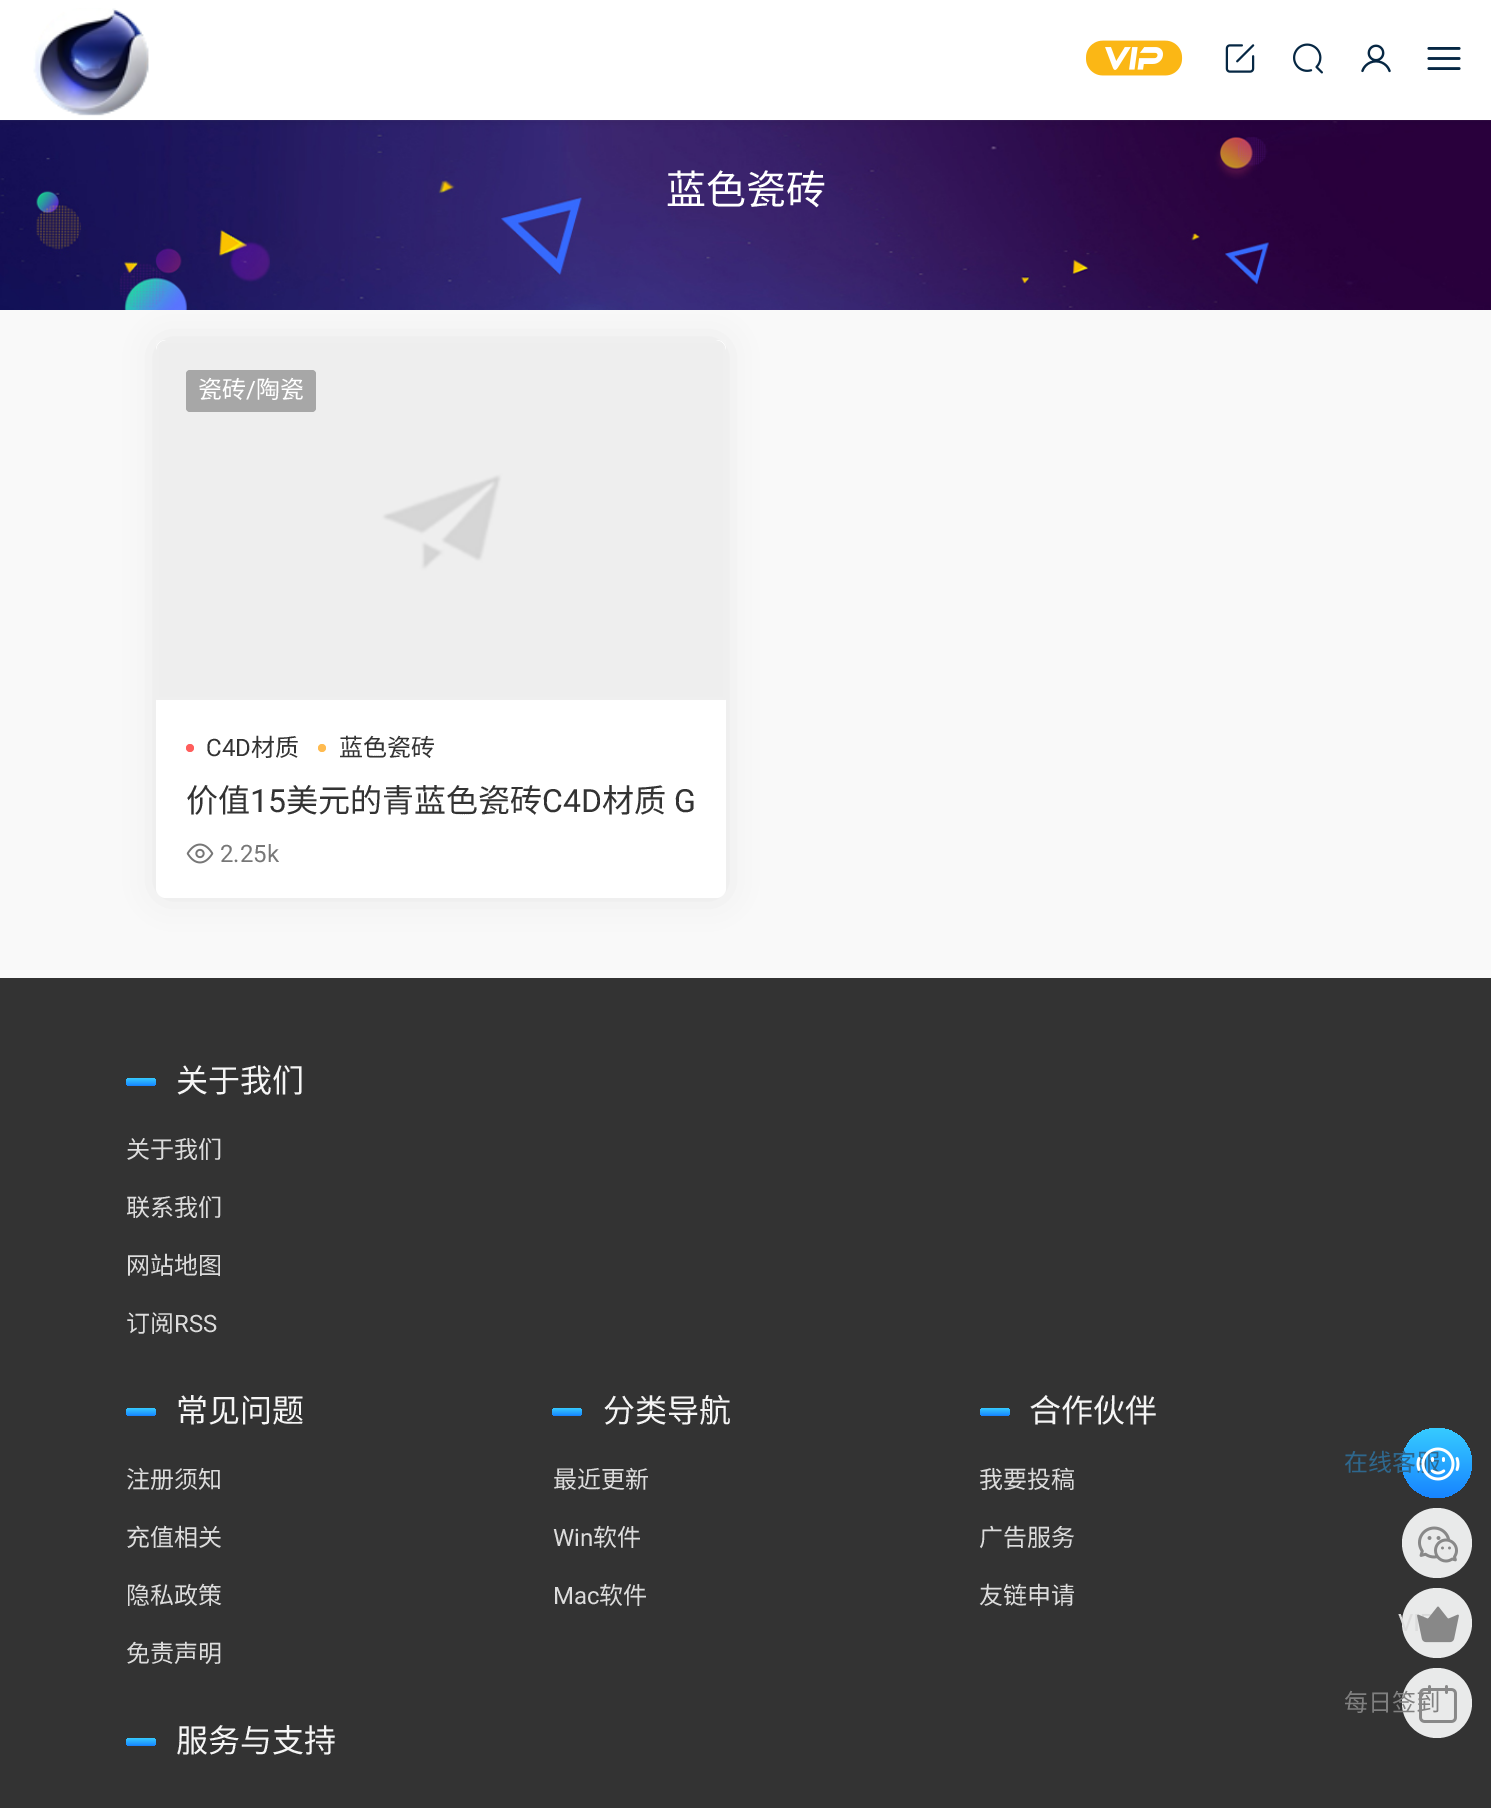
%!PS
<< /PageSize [1491 1808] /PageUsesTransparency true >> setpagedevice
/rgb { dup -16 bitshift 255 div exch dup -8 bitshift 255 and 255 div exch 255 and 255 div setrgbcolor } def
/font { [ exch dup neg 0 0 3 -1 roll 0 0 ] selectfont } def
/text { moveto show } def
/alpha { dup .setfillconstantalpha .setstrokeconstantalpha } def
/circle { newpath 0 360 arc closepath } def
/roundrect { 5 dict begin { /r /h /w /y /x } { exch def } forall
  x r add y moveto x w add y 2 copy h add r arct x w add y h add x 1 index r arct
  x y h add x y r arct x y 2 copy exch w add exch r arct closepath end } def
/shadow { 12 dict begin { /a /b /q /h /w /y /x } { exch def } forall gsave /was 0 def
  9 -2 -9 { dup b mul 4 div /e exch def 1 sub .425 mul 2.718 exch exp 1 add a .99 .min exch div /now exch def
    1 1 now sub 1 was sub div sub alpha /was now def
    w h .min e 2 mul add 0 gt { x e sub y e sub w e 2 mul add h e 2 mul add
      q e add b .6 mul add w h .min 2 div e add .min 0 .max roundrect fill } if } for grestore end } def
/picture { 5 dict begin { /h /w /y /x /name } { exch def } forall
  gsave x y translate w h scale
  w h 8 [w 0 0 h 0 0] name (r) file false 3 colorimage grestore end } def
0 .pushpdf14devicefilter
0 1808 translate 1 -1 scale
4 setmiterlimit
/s1 { /NotoSansCJKSC-Regular 40 font 16#FFFFFF rgb } def
/s2 { /NotoSansCJKSC-Regular 24 font 16#FFFFFF rgb } def
/s3 { /Roboto-Regular 24 font 16#FFFFFF rgb } def
/s4 { /Roboto-Regular 24 font 16#333333 rgb } def
/s5 { /NotoSansCJKSC-Regular 24 font 16#333333 rgb } def
/s6 { /NotoSansCJKSC-Regular 32 font 16#333333 rgb } def
/s7 { /Roboto-Regular 32 font 16#333333 rgb } def
/s8 { /Roboto-Regular 24 font 16#777777 rgb } def
/s9 { /NotoSansCJKSC-Regular 32 font 16#F5F5F5 rgb } def
/s10 { /NotoSansCJKSC-Regular 24 font 16#DCDCDC rgb } def
/s11 { /Roboto-Regular 24 font 16#DCDCDC rgb } def
/s12 { /NotoSansCJKSC-Regular 24 font 16#2E678D rgb } def
/s13 { /NotoSansCJKSC-Regular 24 font 16#808080 rgb } def
16#F9F9F9 rgb
0 0 1491 1808 rectfill
(pic7.raw) 0 120 1491 190 picture
16#000000 rgb
0 2 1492 120 0 5 0.1 shadow
16#FFFFFF rgb
0 0 1491 120 rectfill
(pic1.raw) 33 8 116 108 picture
(pic2.raw) 1086 40 97 36 picture
(pic3.raw) 1225 44 30 29 picture
(pic4.raw) 1293 43 30 31 picture
(pic5.raw) 1361 44 30 29 picture
(pic6.raw) 1427 47 34 23 picture
s1
(蓝色瓷砖) 666 204 text
16#000000 rgb
156 340 570 558 10 15 0.07 shadow
16#FFFFFF rgb
156 340 570 558 10 roundrect fill
166 340 moveto 716 340 lineto 721.5 340 726 344.5 726 350 curveto 726 700 lineto 156 700 lineto 156 350 lineto 156 344.5 160.5 340 166 340 curveto closepath fill
(pic8.raw) 156 340 570 360 picture
16#A7A7A7 rgb
186 370 130 42 4 roundrect fill
s2
(瓷砖) 198 398 text
s3
(/) 246 398 text
s2
(陶瓷) 256 398 text
16#FF5E5C rgb
190 748 4 circle fill
s4
(C4D) 206 756 text
s5
(材质) 251 756 text
16#FFBB50 rgb
322 748 4 circle fill
s5
(蓝色瓷砖) 339 756 text
s6
(价值) 186 812 text
s7
(15) 250 812 text
s6
(美元的青蓝色瓷砖) 286 812 text
s7
(C4D) 542 812 text
s6
(材质) 602 812 text
s7
(G) 674 812 text
(pic9.raw) 186 843 28 21 picture
s8
(2.25k) 220 862 text
16#333333 rgb
0 978 1491 830 rectfill
gsave 126 1078 30 8 4 roundrect clip newpath
<< /ShadingType 2 /ColorSpace /DeviceRGB /Coords [141 1078 141 1086] /Extend [true true] /Function << /FunctionType 2 /Domain [0 1] /C0 [0.212 0.796 1] /C1 [0.09 0.518 1] /N 1 >> >> shfill grestore
s9
(关于我们) 176 1092 text
s10
(关于我们) 126 1158 text
(联系我们) 126 1216 text
(网站地图) 126 1274 text
(订阅) 126 1332 text
s11
(RSS) 174 1332 text
gsave 126 1408 30 8 4 roundrect clip newpath
<< /ShadingType 2 /ColorSpace /DeviceRGB /Coords [141 1408 141 1416] /Extend [true true] /Function << /FunctionType 2 /Domain [0 1] /C0 [0.212 0.796 1] /C1 [0.09 0.518 1] /N 1 >> >> shfill grestore
s9
(常见问题) 176 1422 text
s10
(注册须知) 126 1488 text
(充值相关) 126 1546 text
(隐私政策) 126 1604 text
(免责声明) 126 1662 text
gsave 552 1408 30 8 4 roundrect clip newpath
<< /ShadingType 2 /ColorSpace /DeviceRGB /Coords [567 1408 567 1416] /Extend [true true] /Function << /FunctionType 2 /Domain [0 1] /C0 [0.212 0.796 1] /C1 [0.09 0.518 1] /N 1 >> >> shfill grestore
s9
(分类导航) 603 1422 text
s10
(最近更新) 553 1488 text
s11
(Win) 553 1546 text
s10
(软件) 593 1546 text
s11
(Mac) 553 1604 text
s10
(软件) 599 1604 text
gsave 980 1408 30 8 4 roundrect clip newpath
<< /ShadingType 2 /ColorSpace /DeviceRGB /Coords [995 1408 995 1416] /Extend [true true] /Function << /FunctionType 2 /Domain [0 1] /C0 [0.212 0.796 1] /C1 [0.09 0.518 1] /N 1 >> >> shfill grestore
s9
(合作伙伴) 1029 1422 text
s10
(我要投稿) 979 1488 text
(广告服务) 979 1546 text
(友链申请) 979 1604 text
gsave 126 1738 30 8 4 roundrect clip newpath
<< /ShadingType 2 /ColorSpace /DeviceRGB /Coords [141 1738 141 1746] /Extend [true true] /Function << /FunctionType 2 /Domain [0 1] /C0 [0.212 0.796 1] /C1 [0.09 0.518 1] /N 1 >> >> shfill grestore
s9
(服务与支持) 176 1752 text
gsave 1437 1463 35 circle clip newpath
<< /ShadingType 2 /ColorSpace /DeviceRGB /Coords [1437 1428 1437 1498] /Extend [true true] /Function << /FunctionType 2 /Domain [0 1] /C0 [0.212 0.796 1] /C1 [0.09 0.518 1] /N 1 >> >> shfill grestore
s12
(在线客服) 1344 1471 text
(pic10.raw) 1416 1447 44 34 picture
16#E9EAEA rgb
1437 1543 35 circle fill
(pic11.raw) 1418 1526 40 37 picture
1437 1623 35 circle fill
s11
(VI) 1398 1631 text
(pic12.raw) 1417 1606 42 37 picture
16#E9EAEA rgb
1437 1703 35 circle fill
s13
(每日签到) 1344 1711 text
(pic13.raw) 1419 1685 38 38 picture
.poppdf14devicefilter showpage
